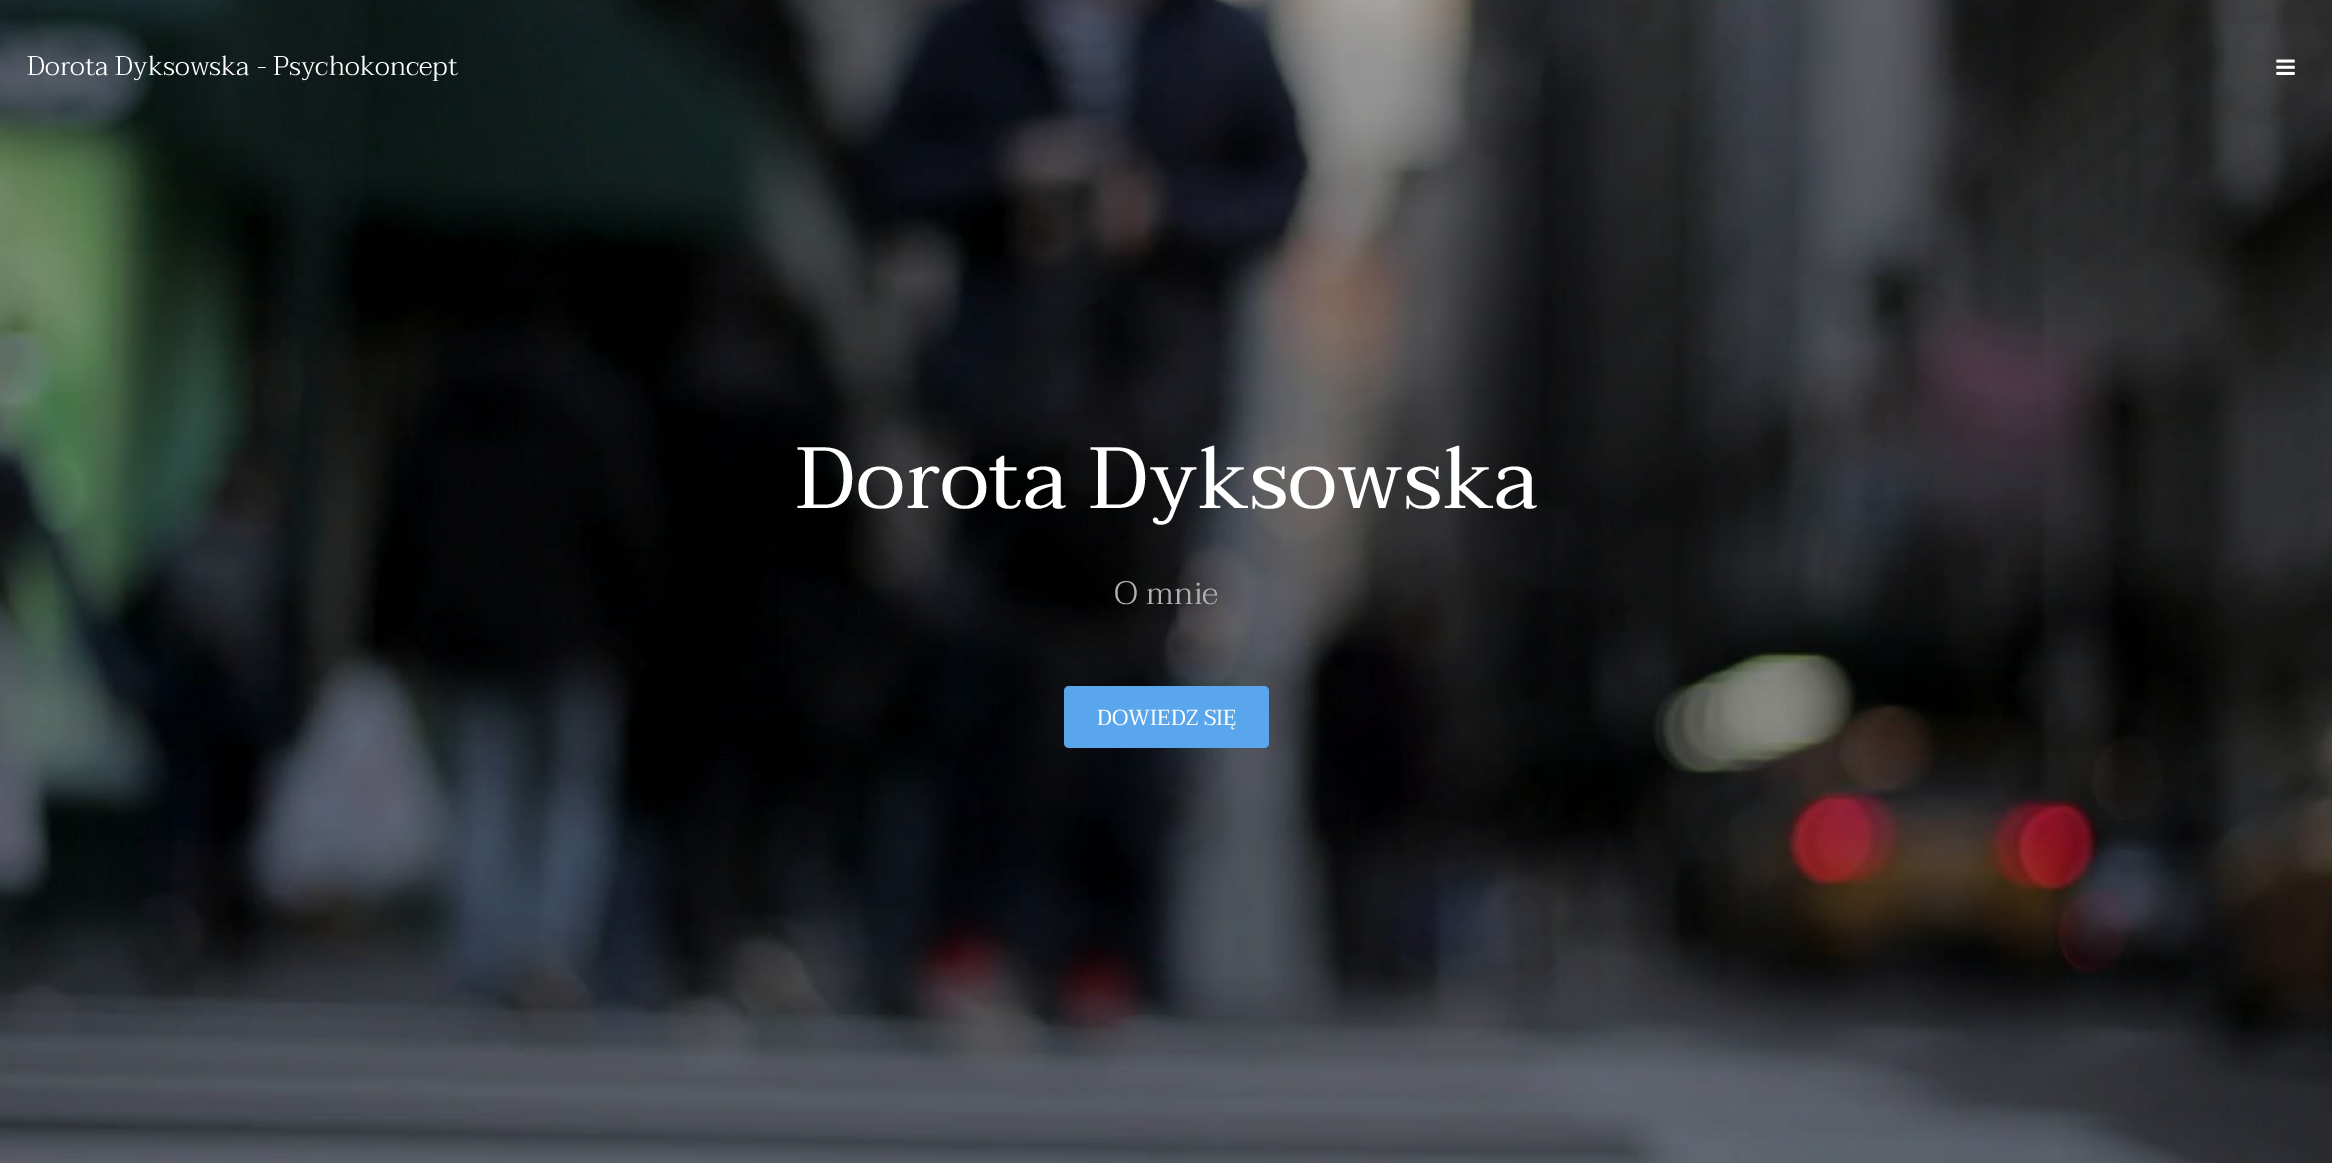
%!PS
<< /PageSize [2332 1163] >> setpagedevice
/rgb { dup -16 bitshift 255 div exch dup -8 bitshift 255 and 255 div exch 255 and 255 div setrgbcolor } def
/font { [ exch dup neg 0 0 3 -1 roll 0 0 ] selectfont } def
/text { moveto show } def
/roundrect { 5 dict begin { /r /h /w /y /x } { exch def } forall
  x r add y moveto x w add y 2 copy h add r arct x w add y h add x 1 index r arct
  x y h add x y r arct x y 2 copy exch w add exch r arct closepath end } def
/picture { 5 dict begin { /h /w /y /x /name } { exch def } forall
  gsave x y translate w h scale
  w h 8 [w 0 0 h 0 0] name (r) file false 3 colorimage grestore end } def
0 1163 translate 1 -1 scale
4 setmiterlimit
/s1 { /Taviraj-Light 27.1 font 16#FFFFFF rgb } def
/s2 { /Taviraj-Regular 86.75 font 16#FFFFFF rgb } def
/s3 { /Taviraj-Light 32.5 font 16#B1B1B2 rgb } def
/s4 { /Taviraj-Regular 21.75 font 16#FFFFFF rgb } def
16#FFFFFF rgb
0 0 2332 1163 rectfill
(pic2.raw) 0 0 2332 1163 picture
s1
(Dorota Dyksowska - Psychokoncept) 27 75 text
(pic1.raw) 2276 59 19 16 picture
s2
(Dorota Dyksowska) 796 508 text
s3
(O mnie) 1114 604 text
16#5AA6ED rgb
1064 686 205 62 5 roundrect fill
s4
(DOWIEDZ SIĘ) 1097 725 text
showpage
